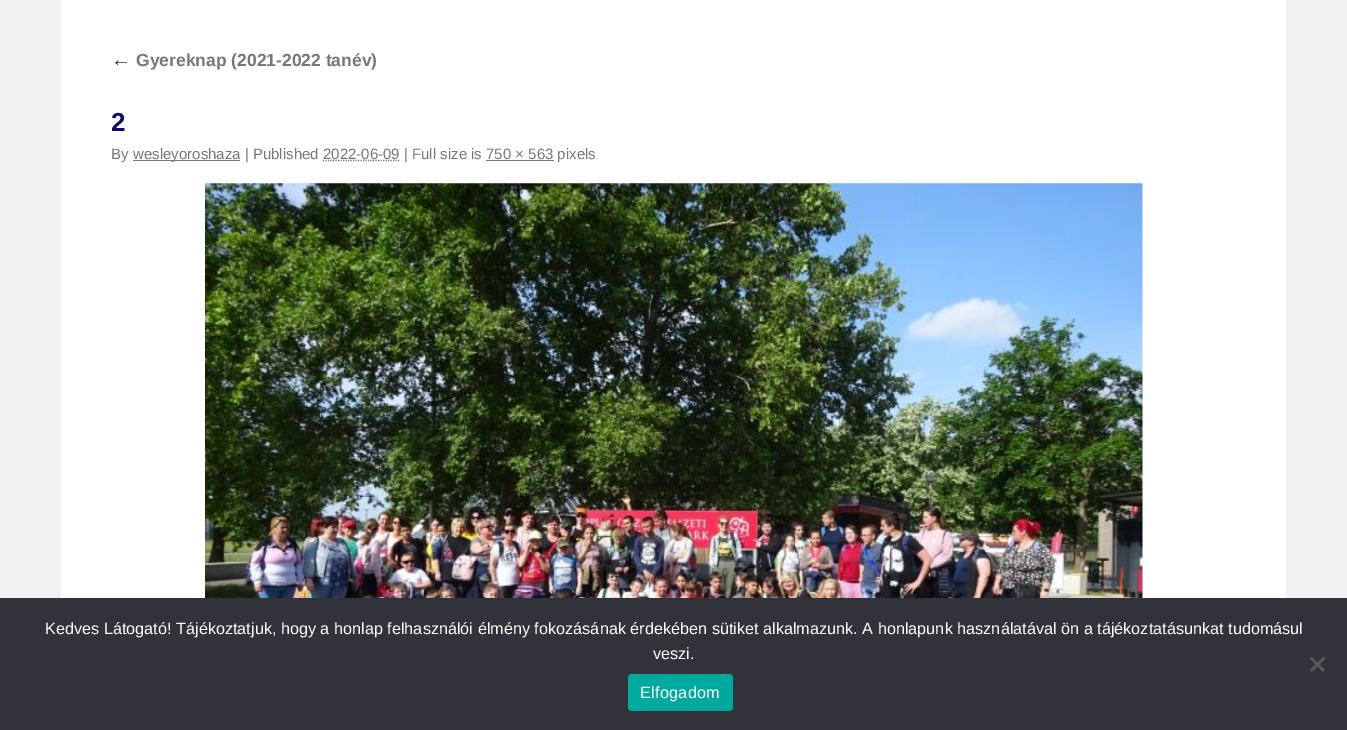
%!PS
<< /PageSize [1347 730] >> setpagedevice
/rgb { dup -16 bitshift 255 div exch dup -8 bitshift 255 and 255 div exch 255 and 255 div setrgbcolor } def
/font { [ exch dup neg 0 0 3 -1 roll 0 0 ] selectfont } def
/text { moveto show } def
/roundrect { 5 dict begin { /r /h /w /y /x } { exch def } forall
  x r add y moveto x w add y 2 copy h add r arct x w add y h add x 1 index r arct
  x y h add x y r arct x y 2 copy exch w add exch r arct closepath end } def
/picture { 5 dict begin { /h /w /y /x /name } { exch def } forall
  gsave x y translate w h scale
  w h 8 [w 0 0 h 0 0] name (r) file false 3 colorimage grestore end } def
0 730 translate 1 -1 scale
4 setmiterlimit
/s1 { /LiberationSerif-Italic 20 font 16#333333 rgb } def
/s2 { /LiberationSans-Bold 17.5 font 16#777777 rgb } def
/s3 { /LiberationSans-Bold 26 font 16#0B0B6A rgb } def
/s4 { /LiberationSans-Regular 15 font 16#777777 rgb } def
/s5 { /LiberationSans-Regular 16.25 font 16#FFFFFF rgb } def
16#F1F1F1 rgb
0 0 1347 730 rectfill
16#FFFFFF rgb
61 0 1225 598 rectfill
s1
(←) 111 66 text
s2
(Gyereknap \(2021-2022 tanév\)) 136 66 text
s3
(2) 111 131 text
s4
(By) 111 159 text
133 160 107 1 rectfill
(wesleyoroshaza | Published) 133 159 text
1.2 setlinewidth
[1.25 1.25] 0 setdash
323 160.5 moveto 399.5 160.5 lineto stroke
(2022-06-09 | Full size is 750 × 563 pixels) 323 159 text
486 160 68 1 rectfill
(pic1.raw) 205 183 938 415 picture
16#32323A rgb
0 598 1347 132 rectfill
s5
(Kedves Látogató! Tájékoztatjuk, hogy a honlap felhasználói élmény fokozásának érdekében sütiket alkalmazunk. A honlapunk használatával ön a tájékoztatásunkat tudomásul) 45 634 text
(veszi.) 653 659 text
16#59595D rgb
1323 657 moveto 1325 658.5 lineto 1312 672 lineto 1310 670 lineto closepath fill
1310 658.5 moveto 1312 657 lineto 1325 670 lineto 1323 672 lineto closepath fill
16#00A99D rgb
628 674 105 37 4 roundrect fill
16#FFFFFF rgb
640 698 moveto 0.25 0 (Elfogadom) ashow
showpage
